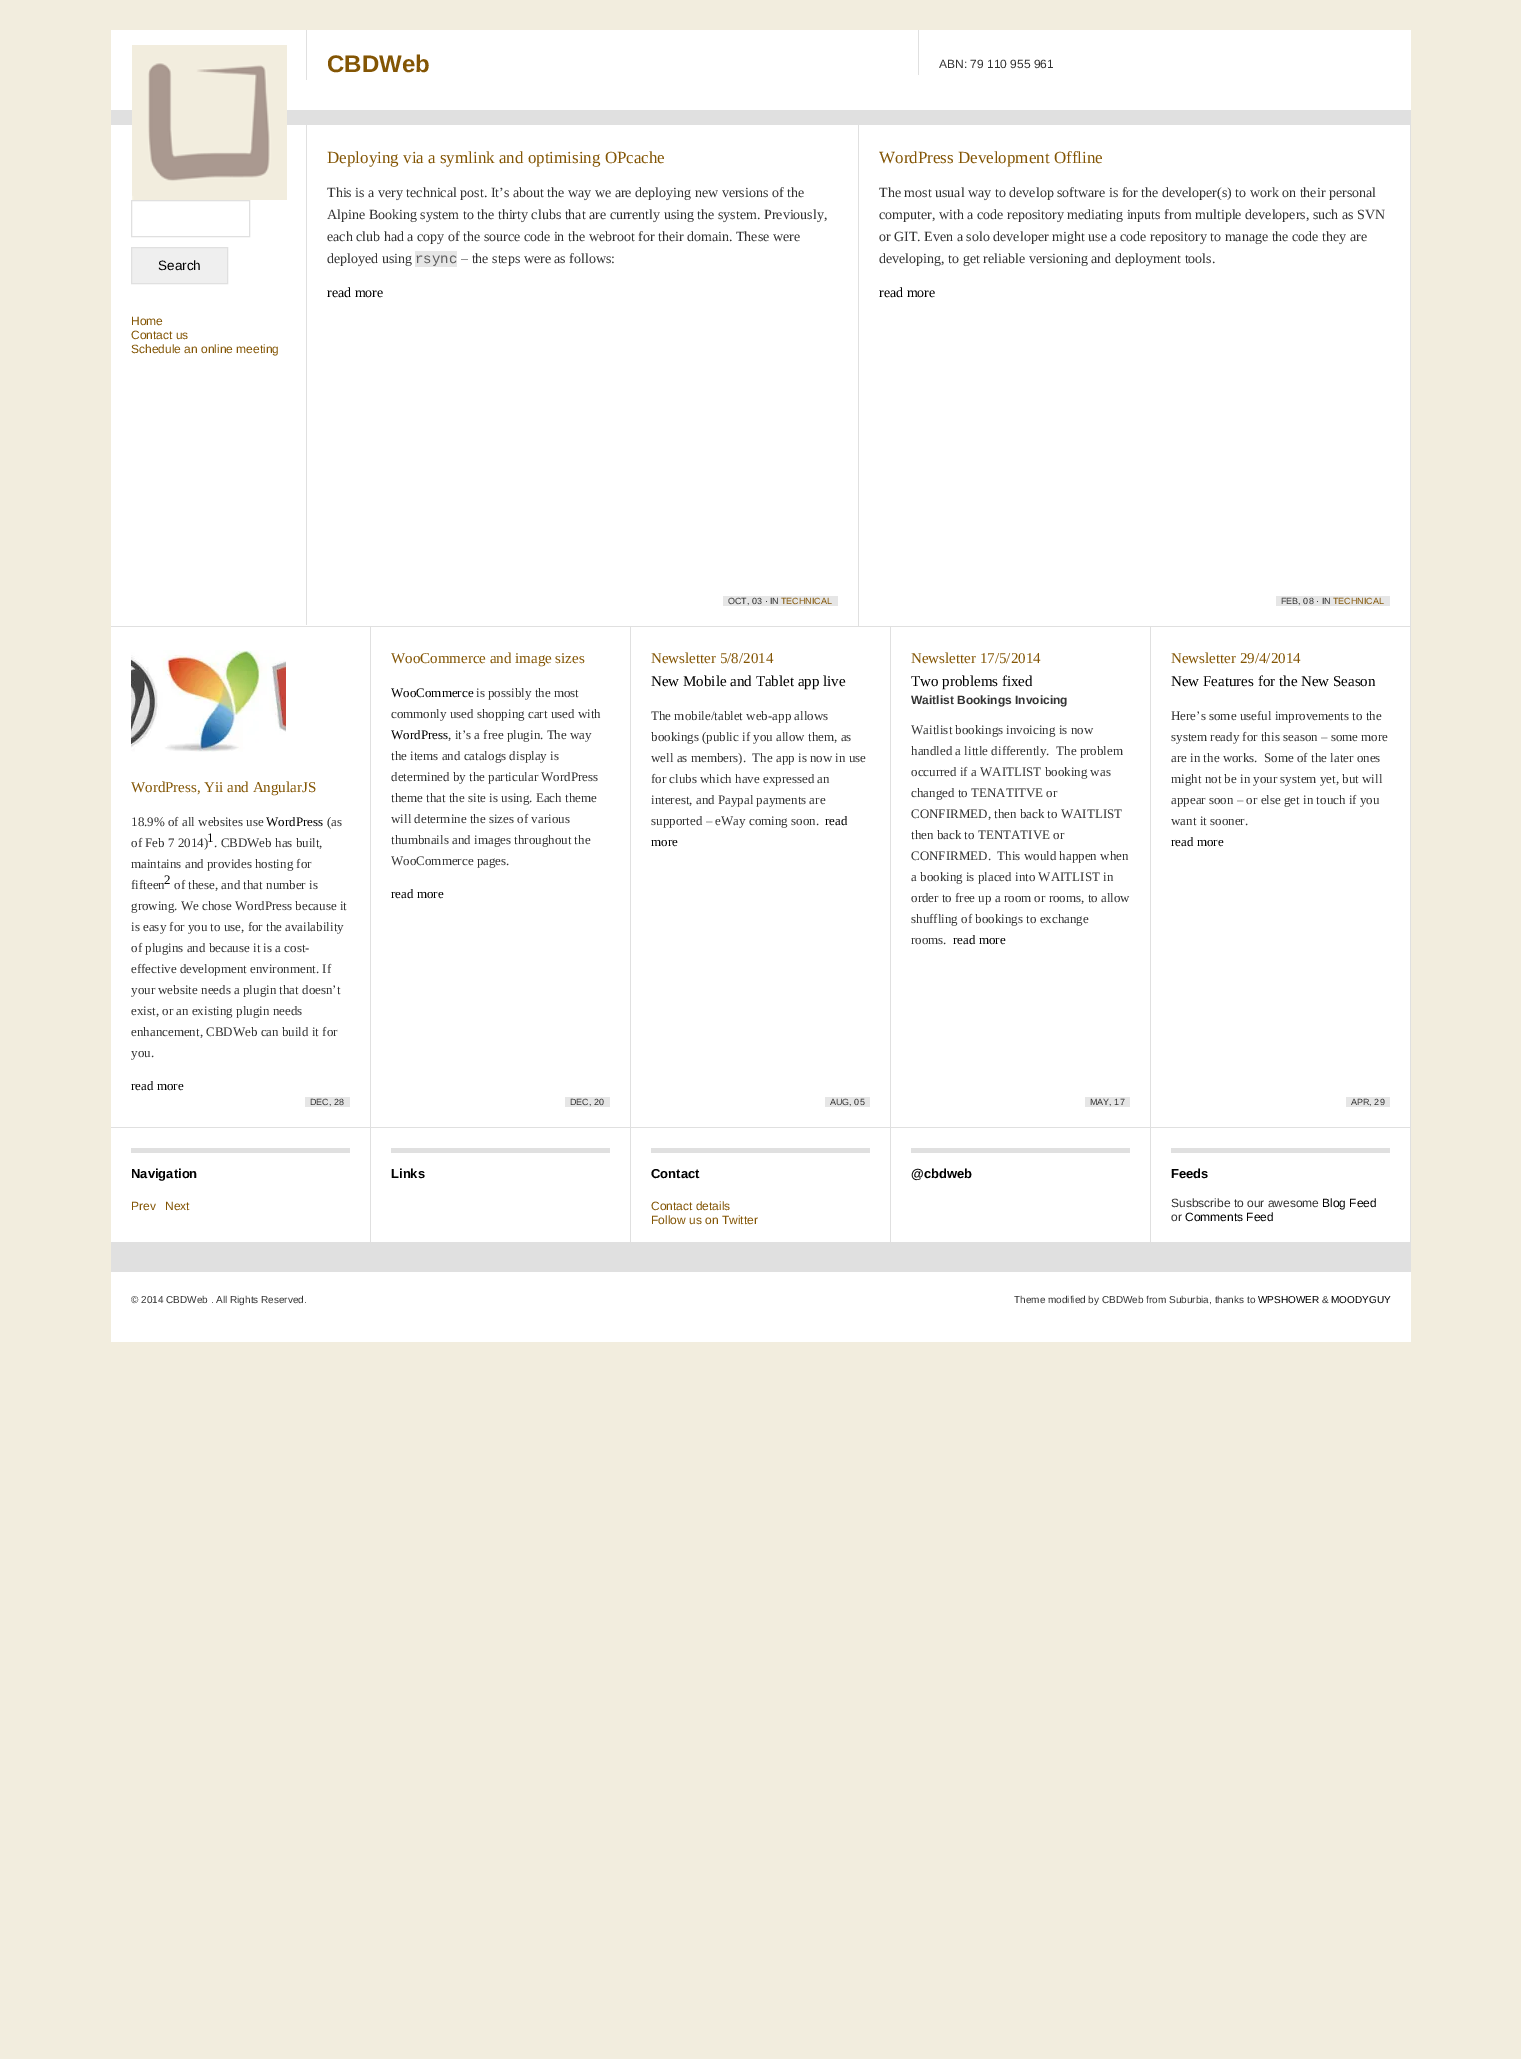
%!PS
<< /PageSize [1521 2059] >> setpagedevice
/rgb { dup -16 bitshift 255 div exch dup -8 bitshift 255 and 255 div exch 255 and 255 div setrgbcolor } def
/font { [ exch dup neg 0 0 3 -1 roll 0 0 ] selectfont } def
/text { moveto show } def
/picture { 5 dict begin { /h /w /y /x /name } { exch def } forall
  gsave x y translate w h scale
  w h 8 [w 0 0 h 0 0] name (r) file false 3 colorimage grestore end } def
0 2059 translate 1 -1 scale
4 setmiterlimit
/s1 { /LiberationSans-Bold 24 font 16#835504 rgb } def
/s2 { /LiberationSans-Regular 12 font 16#333333 rgb } def
/s3 { /LiberationSans-Regular 13.5 font 16#000000 rgb } def
/s4 { /LiberationSans-Regular 12 font 16#835504 rgb } def
/s5 { /LiberationSerif-Regular 17 font 16#835504 rgb } def
/s6 { /LiberationSerif-Regular 14 font 16#333333 rgb } def
/s7 { /LiberationMono-Regular 14 font 16#5C5C5C rgb } def
/s8 { /LiberationSerif-Regular 14 font 16#000000 rgb } def
/s9 { /LiberationSans-Regular 9 font 16#333333 rgb } def
/s10 { /LiberationSans-Regular 9 font 16#835504 rgb } def
/s11 { /LiberationSerif-Regular 15 font 16#835504 rgb } def
/s12 { /LiberationSerif-Regular 13 font 16#333333 rgb } def
/s13 { /LiberationSerif-Regular 13 font 16#000000 rgb } def
/s14 { /LiberationSerif-Regular 15 font 16#000000 rgb } def
/s15 { /LiberationSans-Bold 12 font 16#333333 rgb } def
/s16 { /LiberationSans-Bold 13 font 16#000000 rgb } def
/s17 { /LiberationSans-Regular 12 font 16#000000 rgb } def
/s18 { /LiberationSans-Regular 10 font 16#333333 rgb } def
/s19 { /LiberationSans-Regular 10 font 16#000000 rgb } def
16#F2EDDE rgb
0 0 1521 2059 rectfill
16#FFFFFF rgb
111 30 1300 1312 rectfill
16#E0E0E0 rgb
111 110 1300 15 rectfill
(pic1.raw) 132 45 155 155 picture
306 30 1 50 rectfill
s1
(CBDWeb) 327 72 text
16#E0E0E0 rgb
918 30 1 45 rectfill
s2
(ABN: 79 110 955 961) 939 68 text
16#E0E0E0 rgb
306 125 1 500 rectfill
131.5 200.5 118 36 rectstroke
16#EFEFEF rgb
131.5 247.5 moveto 227.5 247.5 lineto 227.5 283.5 lineto 131.5 283.5 lineto closepath gsave fill grestore
16#E0E0E0 rgb
stroke
s3
(Search) 158 270 text
s4
(Home) 131 325 text
(Contact us) 131 339 text
(Schedule an online meeting) 131 353 text
16#E0E0E0 rgb
858 125 1 501 rectfill
s5
(Deploying via a symlink and optimising OPcache) 327 163 text
s6
(This is a very technical post. It’s about the way we are deploying new versions of the) 327 197 text
(Alpine Booking system to the thirty clubs that are currently using the system. Previously,) 327 219 text
(each club had a copy of the source code in the webroot for their domain. These were) 327 241 text
(deployed using) 327 263 text
16#E6E6E6 rgb
415 251 42 16 rectfill
s7
(rsync) 415 263 text
s6
(– the steps were as follows:) 461 263 text
s8
(read more) 327 297 text
16#E6E6E6 rgb
723 596 115 10 rectfill
s9
(OCT, 03 · IN) 728 604 text
s10
(TECHNICAL) 781 604 text
16#E0E0E0 rgb
1410 125 1 501 rectfill
s5
(WordPress Development Offline) 879 163 text
s6
(The most usual way to develop software is for the developer\(s\) to work on their personal) 879 197 text
(computer, with a code repository mediating inputs from multiple developers, such as SVN) 879 219 text
(or GIT. Even a solo developer might use a code repository to manage the code they are) 879 241 text
(developing, to get reliable versioning and deployment tools.) 879 263 text
s8
(read more) 879 297 text
16#E6E6E6 rgb
1276 596 114 10 rectfill
s9
(FEB, 08 · IN) 1281 604 text
s10
(TECHNICAL) 1333 604 text
16#E0E0E0 rgb
111 626 1300 1 rectfill
370 626 1 501 rectfill
(pic2.raw) 131 650 155 102 picture
s11
(WordPress, Yii and AngularJS) 131 792 text
s12
(18.9% of all websites use) 131 826 text
s13
(WordPress) 266 826 text
s12
(\(as) 327 826 text
(of Feb 7 2014\)) 131 847 text
s13
(1) 207 842 text
s12
(. CBDWeb has built,) 214 847 text
(maintains and provides hosting for) 131 868 text
(fifteen) 131 889 text
s13
(2) 164 884 text
s12
(of these, and that number is) 174 889 text
(growing. We chose WordPress because it) 131 910 text
(is easy for you to use, for the availability) 131 931 text
(of plugins and because it is a cost-) 131 952 text
(effective development environment. If) 131 973 text
(your website needs a plugin that doesn’t) 131 994 text
(exist, or an existing plugin needs) 131 1015 text
(enhancement, CBDWeb can build it for) 131 1036 text
(you.) 131 1057 text
s13
(read more) 131 1090 text
16#E6E6E6 rgb
305 1097 45 10 rectfill
s9
(DEC, 28) 310 1105 text
16#E0E0E0 rgb
630 626 1 501 rectfill
s11
(WooCommerce and image sizes) 391 663 text
s13
(WooCommerce) 391 697 text
s12
(is possibly the most) 476 697 text
(commonly used shopping cart used with) 391 718 text
s13
(WordPress) 391 739 text
s12
(, it’s a free plugin. The way) 448 739 text
(the items and catalogs display is) 391 760 text
(determined by the particular WordPress) 391 781 text
(theme that the site is using. Each theme) 391 802 text
(will determine the sizes of various) 391 823 text
(thumbnails and images throughout the) 391 844 text
(WooCommerce pages.) 391 865 text
s13
(read more) 391 898 text
16#E6E6E6 rgb
565 1097 45 10 rectfill
s9
(DEC, 20) 570 1105 text
16#E0E0E0 rgb
890 626 1 501 rectfill
s11
(Newsletter 5/8/2014) 651 663 text
s14
(New Mobile and Tablet app live) 651 686 text
s12
(The mobile/tablet web-app allows) 651 720 text
(bookings \(public if you allow them, as) 651 741 text
(well as members\).  The app is now in use) 651 762 text
(for clubs which have expressed an) 651 783 text
(interest, and Paypal payments are) 651 804 text
(supported – eWay coming soon.) 651 825 text
s13
(read) 825 825 text
(more) 651 846 text
16#E6E6E6 rgb
825 1097 45 10 rectfill
s9
(AUG, 05) 830 1105 text
16#E0E0E0 rgb
1150 626 1 501 rectfill
s11
(Newsletter 17/5/2014) 911 663 text
s14
(Two problems fixed) 911 686 text
s15
(Waitlist Bookings Invoicing) 911 704 text
s12
(Waitlist bookings invoicing is now) 911 734 text
(handled a little differently.  The problem) 911 755 text
(occurred if a WAITLIST booking was) 911 776 text
(changed to TENATITVE or) 911 797 text
(CONFIRMED, then back to WAITLIST) 911 818 text
(then back to TENTATIVE or) 911 839 text
(CONFIRMED.  This would happen when) 911 860 text
(a booking is placed into WAITLIST in) 911 881 text
(order to free up a room or rooms, to allow) 911 902 text
(shuffling of bookings to exchange) 911 923 text
(rooms.) 911 944 text
s13
(read more) 953 944 text
16#E6E6E6 rgb
1085 1097 45 10 rectfill
s9
(MAY, 17) 1090 1105 text
16#E0E0E0 rgb
1410 626 1 501 rectfill
s11
(Newsletter 29/4/2014) 1171 663 text
s14
(New Features for the New Season) 1171 686 text
s12
(Here’s some useful improvements to the) 1171 720 text
(system ready for this season – some more) 1171 741 text
(are in the works.  Some of the later ones) 1171 762 text
(might not be in your system yet, but will) 1171 783 text
(appear soon – or else get in touch if you) 1171 804 text
(want it sooner.) 1171 825 text
s13
(read more) 1171 846 text
16#E6E6E6 rgb
1346 1097 44 10 rectfill
s9
(APR, 29) 1351 1105 text
16#E0E0E0 rgb
111 1127 1300 1 rectfill
370 1127 1 116 rectfill
131 1148 219 5 rectfill
s16
(Navigation) 131 1178 text
s4
(Prev) 131 1210 text
(Next) 165 1210 text
16#E0E0E0 rgb
630 1127 1 116 rectfill
391 1148 219 5 rectfill
s16
(Links) 391 1178 text
16#E0E0E0 rgb
890 1127 1 116 rectfill
651 1148 219 5 rectfill
s16
(Contact) 651 1178 text
s4
(Contact details) 651 1210 text
(Follow us on Twitter) 651 1224 text
16#E0E0E0 rgb
1150 1127 1 116 rectfill
911 1148 219 5 rectfill
s16
(@cbdweb) 911 1178 text
16#E0E0E0 rgb
1410 1127 1 116 rectfill
1171 1148 219 5 rectfill
s16
(Feeds) 1171 1178 text
s2
(Susbscribe to our awesome) 1171 1207 text
s17
(Blog Feed) 1322 1207 text
s2
(or) 1171 1221 text
s17
(Comments Feed) 1185 1221 text
16#E0E0E0 rgb
111 1242 1300 30 rectfill
s18
(© 2014 CBDWeb . All Rights Reserved.) 131 1303 text
(Theme modified by CBDWeb from Suburbia, thanks to) 1014 1303 text
s19
(WPSHOWER) 1258 1303 text
s18
(&) 1322 1303 text
s19
(MOODYGUY) 1331 1303 text
showpage
